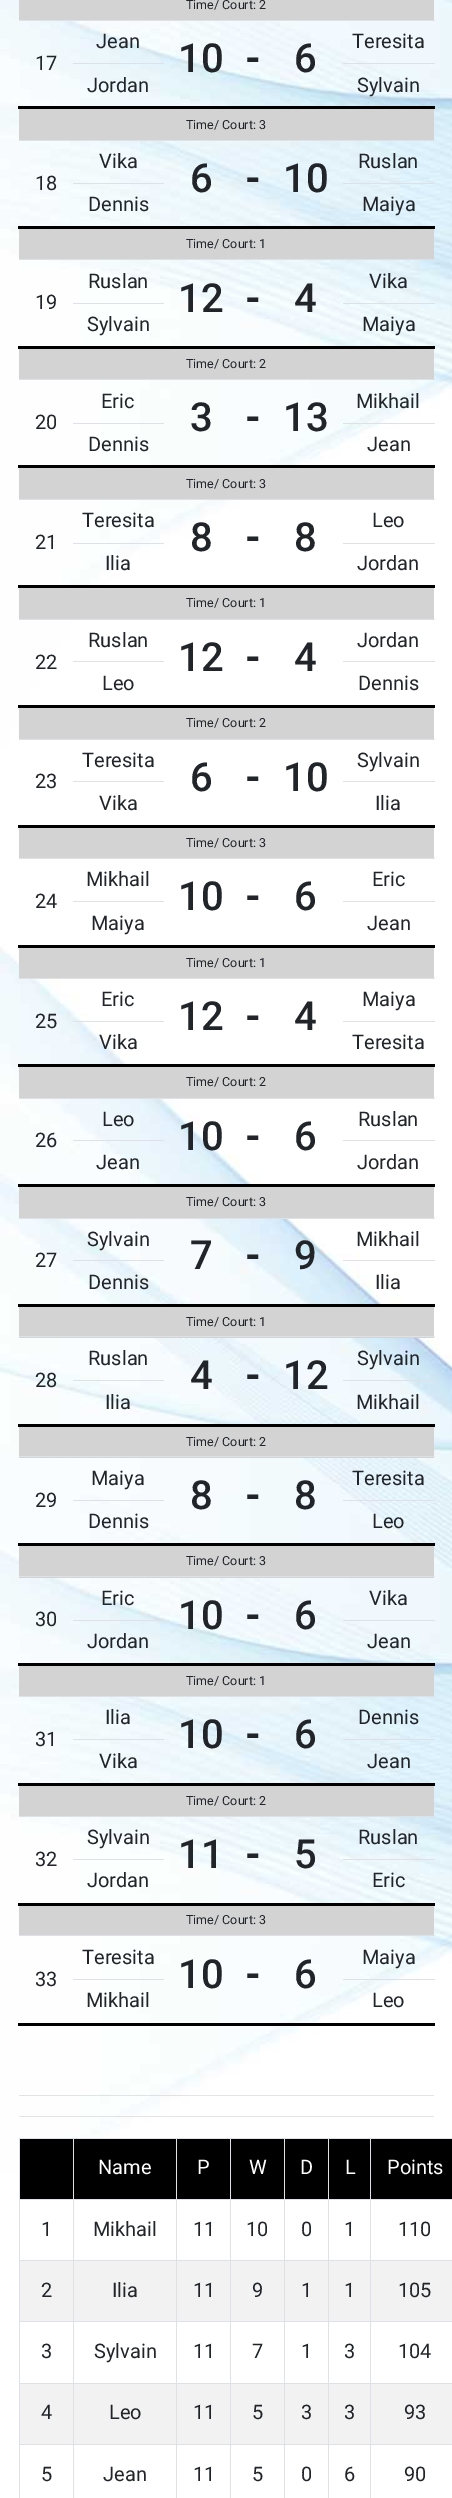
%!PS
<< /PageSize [452 2498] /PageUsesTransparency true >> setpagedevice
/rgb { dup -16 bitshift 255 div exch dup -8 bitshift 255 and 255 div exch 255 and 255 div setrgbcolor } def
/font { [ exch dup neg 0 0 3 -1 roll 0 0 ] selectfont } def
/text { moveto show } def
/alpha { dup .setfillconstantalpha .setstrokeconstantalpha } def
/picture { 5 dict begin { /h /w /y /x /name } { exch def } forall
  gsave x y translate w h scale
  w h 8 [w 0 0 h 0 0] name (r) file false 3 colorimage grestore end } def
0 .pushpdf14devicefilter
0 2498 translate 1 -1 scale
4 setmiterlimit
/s1 { /Roboto-Regular 12.5 font 16#212529 rgb } def
/s2 { /Roboto-Regular 20 font 16#212529 rgb } def
/s3 { /Roboto-Medium 40 font 16#212529 rgb } def
/s4 { /Roboto-Bold 40 font 16#212529 rgb } def
/s5 { /Roboto-Regular 20 font 16#FFFFFF rgb } def
16#FFFFFF rgb
0 0 452 2498 rectfill
(pic1.raw) 0 0 452 2174 picture
16#D3D3D3 rgb
19 0 415 20 rectfill
s1
(Time/ Court: 2) 186 9 text
s2
(Jean) 96 48 text
16#DEE2E6 rgb
19 20 416 1 rectfill
s2
(Teresita) 352 48 text
(17) 35 70 text
s3
(10) 178 72 text
s4
(-) 245 72 text
s3
(6) 294 72 text
16#DEE2E6 rgb
73 63 91 1 rectfill
16#000000 rgb
238 106 197 3 rectfill
18 106 222 3 rectfill
s2
(Jordan) 87 92 text
16#DEE2E6 rgb
343 63 92 1 rectfill
s2
(Sylvain) 357 92 text
16#D3D3D3 rgb
19 109 415 31 rectfill
s1
(Time/ Court: 3) 186 129 text
s2
(Vika) 99 168 text
16#DEE2E6 rgb
19 140 416 1 rectfill
s2
(Ruslan) 358 168 text
(18) 35 190 text
s3
(6) 190 192 text
s4
(-) 245 192 text
s3
(10) 283 192 text
16#DEE2E6 rgb
73 183 91 1 rectfill
16#000000 rgb
238 226 197 3 rectfill
18 226 222 3 rectfill
s2
(Dennis) 88 211 text
16#DEE2E6 rgb
343 183 92 1 rectfill
s2
(Maiya) 362 211 text
16#D3D3D3 rgb
19 229 415 30 rectfill
s1
(Time/ Court: 1) 186 248 text
s2
(Ruslan) 88 288 text
16#DEE2E6 rgb
19 259 416 1 rectfill
s2
(Vika) 369 288 text
(19) 35 309 text
s3
(12) 178 312 text
s4
(-) 245 312 text
s3
(4) 294 312 text
16#DEE2E6 rgb
73 303 91 1 rectfill
16#000000 rgb
238 346 197 3 rectfill
18 346 222 3 rectfill
s2
(Sylvain) 87 331 text
16#DEE2E6 rgb
343 303 92 1 rectfill
s2
(Maiya) 362 331 text
16#D3D3D3 rgb
19 349 415 30 rectfill
s1
(Time/ Court: 2) 186 368 text
s2
(20) 35 429 text
(Eric) 101 408 text
s3
(3) 190 431 text
s4
(-) 245 431 text
s3
(13) 283 431 text
16#DEE2E6 rgb
19 379 416 1 rectfill
s2
(Mikhail) 356 408 text
16#DEE2E6 rgb
73 423 91 1 rectfill
16#000000 rgb
238 465 197 3 rectfill
18 465 222 3 rectfill
s2
(Dennis) 88 451 text
16#DEE2E6 rgb
343 423 92 1 rectfill
s2
(Jean) 367 451 text
16#D3D3D3 rgb
19 468 415 31 rectfill
s1
(Time/ Court: 3) 186 488 text
s2
(Teresita) 82 527 text
16#DEE2E6 rgb
19 499 416 1 rectfill
s2
(Leo) 372 527 text
(21) 35 549 text
s3
(8) 190 551 text
s4
(-) 245 551 text
s3
(8) 294 551 text
16#DEE2E6 rgb
73 543 91 1 rectfill
16#000000 rgb
238 585 197 3 rectfill
18 585 222 3 rectfill
s2
(Ilia) 105 570 text
16#DEE2E6 rgb
343 543 92 1 rectfill
s2
(Jordan) 357 570 text
16#D3D3D3 rgb
19 588 415 31 rectfill
s1
(Time/ Court: 1) 186 607 text
s2
(Ruslan) 88 647 text
16#DEE2E6 rgb
19 619 416 1 rectfill
s2
(Jordan) 357 647 text
(22) 35 669 text
s3
(12) 178 671 text
s4
(-) 245 671 text
s3
(4) 294 671 text
16#DEE2E6 rgb
73 661 91 1 rectfill
16#000000 rgb
238 705 197 3 rectfill
18 705 222 3 rectfill
s2
(Leo) 102 690 text
16#DEE2E6 rgb
343 661 92 1 rectfill
s2
(Dennis) 358 690 text
16#D3D3D3 rgb
19 708 415 31 rectfill
s1
(Time/ Court: 2) 186 727 text
s2
(23) 35 788 text
(Teresita) 82 767 text
s3
(6) 190 791 text
s4
(-) 245 791 text
s3
(10) 283 791 text
16#DEE2E6 rgb
19 739 416 1 rectfill
s2
(Sylvain) 357 767 text
16#DEE2E6 rgb
73 781 91 1 rectfill
16#000000 rgb
238 825 197 3 rectfill
18 825 222 3 rectfill
s2
(Vika) 99 810 text
16#DEE2E6 rgb
343 781 92 1 rectfill
s2
(Ilia) 375 810 text
16#D3D3D3 rgb
19 828 415 30 rectfill
s1
(Time/ Court: 3) 186 847 text
s2
(Mikhail) 86 886 text
16#DEE2E6 rgb
19 858 416 1 rectfill
s2
(Eric) 372 886 text
(24) 35 908 text
s3
(10) 178 910 text
s4
(-) 245 910 text
s3
(6) 294 910 text
16#DEE2E6 rgb
73 901 91 1 rectfill
16#000000 rgb
238 945 197 3 rectfill
18 945 222 3 rectfill
s2
(Maiya) 91 930 text
16#DEE2E6 rgb
343 901 92 1 rectfill
s2
(Jean) 367 930 text
16#D3D3D3 rgb
19 948 415 30 rectfill
s1
(Time/ Court: 1) 186 967 text
s2
(25) 35 1028 text
(Eric) 101 1006 text
s3
(12) 178 1030 text
s4
(-) 245 1030 text
s3
(4) 294 1030 text
16#DEE2E6 rgb
19 978 416 1 rectfill
s2
(Maiya) 362 1006 text
16#DEE2E6 rgb
73 1021 91 1 rectfill
16#000000 rgb
238 1064 197 3 rectfill
18 1064 222 3 rectfill
s2
(Vika) 99 1049 text
16#DEE2E6 rgb
343 1021 92 1 rectfill
s2
(Teresita) 352 1049 text
16#D3D3D3 rgb
19 1067 415 31 rectfill
s1
(Time/ Court: 2) 186 1086 text
s2
(Leo) 102 1126 text
16#DEE2E6 rgb
19 1098 416 1 rectfill
s2
(Ruslan) 358 1126 text
(26) 35 1147 text
s3
(10) 178 1150 text
s4
(-) 245 1150 text
s3
(6) 294 1150 text
16#DEE2E6 rgb
73 1140 91 1 rectfill
16#000000 rgb
238 1184 197 3 rectfill
18 1184 222 3 rectfill
s2
(Jean) 96 1169 text
16#DEE2E6 rgb
343 1140 92 1 rectfill
s2
(Jordan) 357 1169 text
16#D3D3D3 rgb
19 1187 415 31 rectfill
s1
(Time/ Court: 3) 186 1206 text
s2
(27) 35 1267 text
(Sylvain) 87 1246 text
s3
(7) 190 1269 text
s4
(-) 245 1269 text
s3
(9) 294 1269 text
16#DEE2E6 rgb
19 1218 416 1 rectfill
s2
(Mikhail) 356 1246 text
16#DEE2E6 rgb
73 1260 91 1 rectfill
16#000000 rgb
238 1304 197 3 rectfill
18 1304 222 3 rectfill
s2
(Dennis) 88 1289 text
16#DEE2E6 rgb
343 1260 92 1 rectfill
s2
(Ilia) 375 1289 text
16#D3D3D3 rgb
19 1307 415 31 rectfill
s1
(Time/ Court: 1) 186 1326 text
s2
(28) 35 1387 text
(Ruslan) 88 1365 text
s3
(4) 190 1389 text
s4
(-) 245 1389 text
s3
(12) 283 1389 text
16#DEE2E6 rgb
19 1336 416 1 rectfill
s2
(Sylvain) 357 1365 text
16#DEE2E6 rgb
73 1380 91 1 rectfill
16#000000 rgb
238 1424 197 3 rectfill
18 1424 222 3 rectfill
s2
(Ilia) 105 1409 text
16#DEE2E6 rgb
343 1380 92 1 rectfill
s2
(Mikhail) 356 1409 text
16#D3D3D3 rgb
19 1427 415 31 rectfill
s1
(Time/ Court: 2) 186 1446 text
s2
(Maiya) 91 1485 text
16#DEE2E6 rgb
19 1456 416 1 rectfill
s2
(Teresita) 352 1485 text
(29) 35 1507 text
s3
(8) 190 1509 text
s4
(-) 245 1509 text
s3
(8) 294 1509 text
16#DEE2E6 rgb
73 1500 91 1 rectfill
16#000000 rgb
238 1543 197 3 rectfill
18 1543 222 3 rectfill
s2
(Dennis) 88 1528 text
16#DEE2E6 rgb
343 1500 92 1 rectfill
s2
(Leo) 372 1528 text
16#D3D3D3 rgb
19 1546 415 32 rectfill
s1
(Time/ Court: 3) 186 1565 text
s2
(Eric) 101 1605 text
16#DEE2E6 rgb
19 1576 416 1 rectfill
s2
(Vika) 369 1605 text
(30) 35 1626 text
s3
(10) 178 1629 text
s4
(-) 245 1629 text
s3
(6) 294 1629 text
16#DEE2E6 rgb
73 1620 91 1 rectfill
16#000000 rgb
238 1663 197 3 rectfill
18 1663 222 3 rectfill
s2
(Jordan) 87 1648 text
16#DEE2E6 rgb
343 1620 92 1 rectfill
s2
(Jean) 367 1648 text
16#D3D3D3 rgb
19 1666 415 30 rectfill
s1
(Time/ Court: 1) 186 1685 text
s2
(Ilia) 105 1724 text
16#DEE2E6 rgb
19 1696 416 1 rectfill
s2
(Dennis) 358 1724 text
(31) 35 1746 text
s3
(10) 178 1748 text
s4
(-) 245 1748 text
s3
(6) 294 1748 text
16#DEE2E6 rgb
73 1739 91 1 rectfill
16#000000 rgb
238 1783 197 3 rectfill
18 1783 222 3 rectfill
s2
(Vika) 99 1768 text
16#DEE2E6 rgb
343 1739 92 1 rectfill
s2
(Jean) 367 1768 text
16#D3D3D3 rgb
19 1786 415 30 rectfill
s1
(Time/ Court: 2) 186 1805 text
s2
(Sylvain) 87 1844 text
16#DEE2E6 rgb
19 1816 416 1 rectfill
s2
(Ruslan) 358 1844 text
(32) 35 1866 text
s3
(11) 178 1868 text
s4
(-) 245 1868 text
s3
(5) 294 1868 text
16#DEE2E6 rgb
73 1859 91 1 rectfill
16#000000 rgb
238 1903 197 3 rectfill
18 1903 222 3 rectfill
s2
(Jordan) 87 1887 text
16#DEE2E6 rgb
343 1859 92 1 rectfill
s2
(Eric) 372 1887 text
16#D3D3D3 rgb
19 1906 415 29 rectfill
s1
(Time/ Court: 3) 186 1924 text
s2
(33) 35 1986 text
(Teresita) 82 1964 text
s3
(10) 178 1988 text
s4
(-) 245 1988 text
s3
(6) 294 1988 text
16#DEE2E6 rgb
19 1935 416 1 rectfill
s2
(Maiya) 362 1964 text
16#DEE2E6 rgb
73 1979 91 1 rectfill
16#000000 rgb
238 2023 197 3 rectfill
18 2023 222 3 rectfill
s2
(Mikhail) 86 2007 text
16#DEE2E6 rgb
343 1979 92 1 rectfill
s2
(Leo) 372 2007 text
0.1 alpha
16#000000 rgb
19 2095 415 1 rectfill
19 2116 415 1 rectfill
1 alpha
16#DEE2E6 rgb
19 2138 433 1 rectfill
19 2138 1 360 rectfill
16#000000 rgb
20 2139 432 60 rectfill
16#DEE2E6 rgb
370 2199 82 1 rectfill
370 2260 82 1 rectfill
16#F2F2F2 rgb
20 2261 432 60 rectfill
16#DEE2E6 rgb
370 2321 82 1 rectfill
370 2383 82 1 rectfill
16#F2F2F2 rgb
20 2384 432 60 rectfill
16#DEE2E6 rgb
370 2444 82 1 rectfill
370 2444 1 54 rectfill
328 2444 43 1 rectfill
370 2383 1 62 rectfill
328 2383 43 1 rectfill
370 2321 1 63 rectfill
328 2321 43 1 rectfill
370 2260 1 63 rectfill
328 2260 43 1 rectfill
370 2199 1 62 rectfill
328 2199 43 1 rectfill
328 2444 1 54 rectfill
284 2444 45 1 rectfill
328 2383 1 62 rectfill
284 2383 45 1 rectfill
328 2321 1 63 rectfill
284 2321 45 1 rectfill
328 2260 1 63 rectfill
284 2260 45 1 rectfill
328 2199 1 62 rectfill
284 2199 45 1 rectfill
284 2444 1 54 rectfill
230 2444 55 1 rectfill
284 2383 1 62 rectfill
230 2383 55 1 rectfill
284 2321 1 63 rectfill
230 2321 55 1 rectfill
284 2260 1 63 rectfill
230 2260 55 1 rectfill
284 2199 1 62 rectfill
230 2199 55 1 rectfill
230 2444 1 54 rectfill
176 2444 55 1 rectfill
230 2383 1 62 rectfill
176 2383 55 1 rectfill
230 2321 1 63 rectfill
176 2321 55 1 rectfill
230 2260 1 63 rectfill
176 2260 55 1 rectfill
230 2199 1 62 rectfill
176 2199 55 1 rectfill
176 2444 1 54 rectfill
73 2444 105 1 rectfill
176 2383 1 62 rectfill
73 2383 105 1 rectfill
176 2321 1 63 rectfill
73 2321 105 1 rectfill
176 2260 1 63 rectfill
73 2260 105 1 rectfill
176 2199 1 62 rectfill
73 2199 105 1 rectfill
73 2444 1 54 rectfill
19 2444 55 1 rectfill
73 2383 1 62 rectfill
19 2383 55 1 rectfill
73 2321 1 63 rectfill
19 2321 55 1 rectfill
73 2260 1 63 rectfill
19 2260 55 1 rectfill
73 2199 1 62 rectfill
19 2199 55 1 rectfill
73 2138 1 62 rectfill
s5
(Name) 98 2174 text
16#DEE2E6 rgb
176 2138 1 62 rectfill
s5
(P) 197 2174 text
16#DEE2E6 rgb
230 2138 1 62 rectfill
s5
(W) 249 2174 text
16#DEE2E6 rgb
284 2138 1 62 rectfill
s5
(D) 300 2174 text
16#DEE2E6 rgb
328 2138 1 62 rectfill
s5
(L) 345 2174 text
16#DEE2E6 rgb
370 2138 1 62 rectfill
s5
(Points) 387 2174 text
s2
(1) 41 2236 text
(Mikhail) 93 2236 text
(11) 193 2236 text
(10) 246 2236 text
(0) 301 2236 text
(1) 344 2236 text
(110) 398 2236 text
(2) 41 2297 text
(Ilia) 112 2297 text
(11) 193 2297 text
(9) 252 2297 text
(1) 301 2297 text
(1) 344 2297 text
(105) 398 2297 text
(3) 41 2358 text
(Sylvain) 94 2358 text
(11) 193 2358 text
(7) 252 2358 text
(1) 301 2358 text
(3) 344 2358 text
(104) 398 2358 text
(4) 41 2419 text
(Leo) 109 2419 text
(11) 193 2419 text
(5) 252 2419 text
(3) 301 2419 text
(3) 344 2419 text
(93) 404 2419 text
(5) 41 2481 text
(Jean) 103 2481 text
(11) 193 2481 text
(5) 252 2481 text
(0) 301 2481 text
(6) 344 2481 text
(90) 404 2481 text
.poppdf14devicefilter showpage
